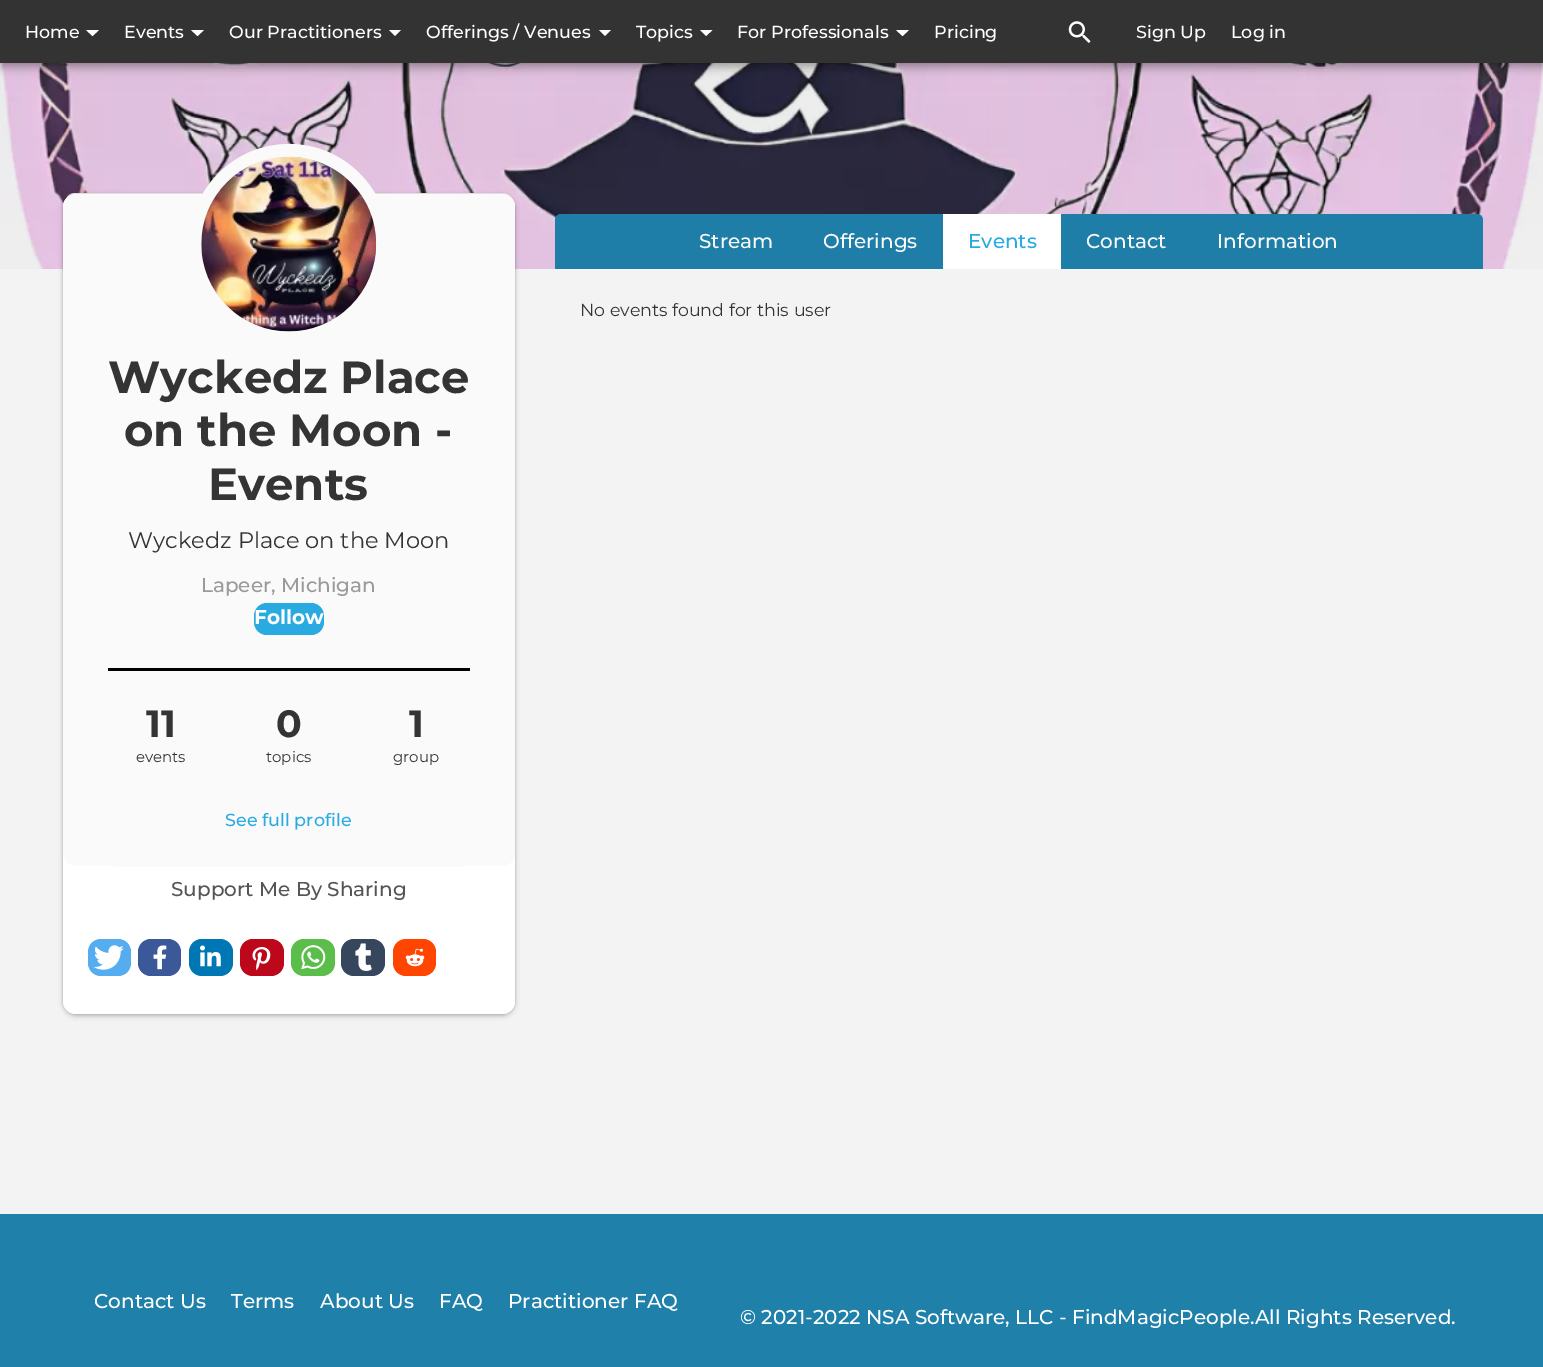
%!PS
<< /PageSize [1543 1367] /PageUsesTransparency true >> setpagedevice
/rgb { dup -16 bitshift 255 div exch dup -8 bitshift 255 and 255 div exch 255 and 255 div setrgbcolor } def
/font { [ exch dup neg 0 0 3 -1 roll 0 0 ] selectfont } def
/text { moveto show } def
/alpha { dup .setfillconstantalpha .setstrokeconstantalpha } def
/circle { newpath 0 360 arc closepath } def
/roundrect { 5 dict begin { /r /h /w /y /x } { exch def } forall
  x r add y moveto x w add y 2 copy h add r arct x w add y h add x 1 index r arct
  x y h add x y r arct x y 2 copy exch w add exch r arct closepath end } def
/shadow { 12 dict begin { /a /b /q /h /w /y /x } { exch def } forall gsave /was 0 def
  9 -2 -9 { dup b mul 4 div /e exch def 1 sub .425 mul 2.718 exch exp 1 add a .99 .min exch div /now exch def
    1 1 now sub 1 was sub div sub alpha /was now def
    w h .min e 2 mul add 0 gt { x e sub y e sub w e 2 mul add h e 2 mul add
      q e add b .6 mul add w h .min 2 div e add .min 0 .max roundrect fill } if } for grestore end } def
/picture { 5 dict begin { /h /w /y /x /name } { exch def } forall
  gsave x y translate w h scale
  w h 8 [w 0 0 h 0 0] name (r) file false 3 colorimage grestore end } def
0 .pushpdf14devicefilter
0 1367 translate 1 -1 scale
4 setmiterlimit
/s1 { /Montserrat-Medium 17.5 font 16#FFFFFF rgb } def
/s2 { /Montserrat-Medium 20 font 16#F9F9F9 rgb } def
/s3 { /Montserrat-Medium 20 font 16#29ABE2 rgb } def
/s4 { /Montserrat-Regular 17.4 font 16#343434 rgb } def
/s5 { /Montserrat-Bold 45 font 16#343434 rgb } def
/s6 { /Montserrat-Regular 22.5 font 16#343434 rgb } def
/s7 { /Montserrat-Medium 20 font 16#989B97 rgb } def
/s8 { /Montserrat-Bold 20 font 16#FFFFFF rgb } def
/s9 { /Montserrat-Bold 38 font 16#343434 rgb } def
/s10 { /Montserrat-Regular 15 font 16#343434 rgb } def
/s11 { /Montserrat-Medium 17.5 font 16#29ABE2 rgb } def
/s12 { /Montserrat-Medium 20 font 16#555555 rgb } def
/s13 { /Montserrat-Medium 20 font 16#FFFFFF rgb } def
16#F3F3F3 rgb
0 0 1543 1367 rectfill
(pic2.raw) 0 63 1543 206 picture
16#000000 rgb
0 5 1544 63 0 5 0.28 shadow
0 0 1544 63 0 2.5 0.14 shadow
16#333333 rgb
0 0 1543 63 rectfill
s1
(Home) 25 38 text
86 30 moveto 99 30 lineto 92.5 36 lineto closepath fill
(Events) 124 38 text
191 30 moveto 204 30 lineto 197.5 36 lineto closepath fill
(Our Practitioners) 229 38 text
389 30 moveto 401 30 lineto 395 36 lineto closepath fill
(Offerings / Venues) 426 38 text
599 30 moveto 611 30 lineto 605 36 lineto closepath fill
(Topics) 636 38 text
700 30 moveto 712.5 30 lineto 706 36 lineto closepath fill
(For Professionals) 737 38 text
896 30 moveto 909 30 lineto 902.5 36 lineto closepath fill
(Pricing) 934 38 text
(pic1.raw) 1068 21 23 22 picture
(Sign Up) 1136 38 text
(Log in) 1231 38 text
16#1F7EA7 rgb
561 214 moveto 1477 214 lineto 1480.5 214 1483 216.5 1483 220 curveto 1483 269 lineto 555 269 lineto 555 220 lineto 555 216.5 557.5 214 561 214 curveto closepath fill
s2
(Stream) 699 248 text
(Offerings) 823 248 text
16#FFFFFF rgb
943 214 118 55 rectfill
s3
(Events) 968 248 text
s2
(Contact) 1086 248 text
(Information) 1217 248 text
s4
(No events found for this user) 580 316 text
16#000000 rgb
63 196 452 820 13 2.5 0.24 shadow
63 194 452 820 13 1 0.12 shadow
16#E0E0E0 rgb
76 193 moveto 72 193 69 194 67 197 curveto 69 195 72 194 75 194 curveto 502 194 lineto 509 194 515 199 515 206 curveto 515 199 509 193 502 193 curveto closepath fill
16#FFFFFF rgb
63 194 452 820 13 roundrect fill
16#FAFAFA rgb
63 194 452 672 13 roundrect fill
13 setlinewidth
289 244 93.5 circle stroke
(pic3.raw) 201 156 176 176 picture
s5
(Wyckedz Place) 108 393 text
(on the Moon -) 124 446 text
(Events) 208 500 text
s6
(Wyckedz Place on the Moon) 128 548 text
s7
(Lapeer, Michigan) 201 592 text
16#29ABE2 rgb
254 603 70 32 13 roundrect fill
s8
(Follow) 254 624 text
16#000000 rgb
108 668 362 3 rectfill
s9
(11) 146 737 text
s10
(events) 136 762 text
s9
(0) 276 737 text
s10
(topics) 266 762 text
s9
(1) 409 737 text
s10
(group) 393 762 text
s11
(See full profile) 225 826 text
16#FFFFFF rgb
63 866 452 148 13 roundrect fill
16#FAFAFA rgb
114 866 350 1 rectfill
s12
(Support Me By Sharing) 171 896 text
16#55ACEE rgb
88 939 43 37 13 roundrect fill
(pic4.raw) 94 945 30 25 picture
16#3B5998 rgb
138 939 43 37 13 roundrect fill
(pic5.raw) 153 945 14 25 picture
16#0077B5 rgb
189 939 44 37 13 roundrect fill
(pic6.raw) 200 945 21 22 picture
16#BD081C rgb
240 939 44 37 13 roundrect fill
(pic7.raw) 252 947 19 24 picture
16#5CBE4A rgb
291 939 44 37 13 roundrect fill
(pic8.raw) 301 945 25 25 picture
16#36465D rgb
341 939 44 37 13 roundrect fill
(pic9.raw) 355 943 17 28 picture
16#FF4500 rgb
393 939 43 37 13 roundrect fill
(pic10.raw) 405 948 20 19 picture
16#1F80AA rgb
0 1214 1543 153 rectfill
s13
(Contact Us) 94 1308 text
(Terms) 231 1308 text
(About Us) 320 1308 text
(FAQ) 439 1308 text
(Practitioner FAQ) 508 1308 text
(© 2021-2022 NSA Software, LLC - FindMagicPeople.All Rights Reserved.) 740 1324 text
.poppdf14devicefilter showpage
